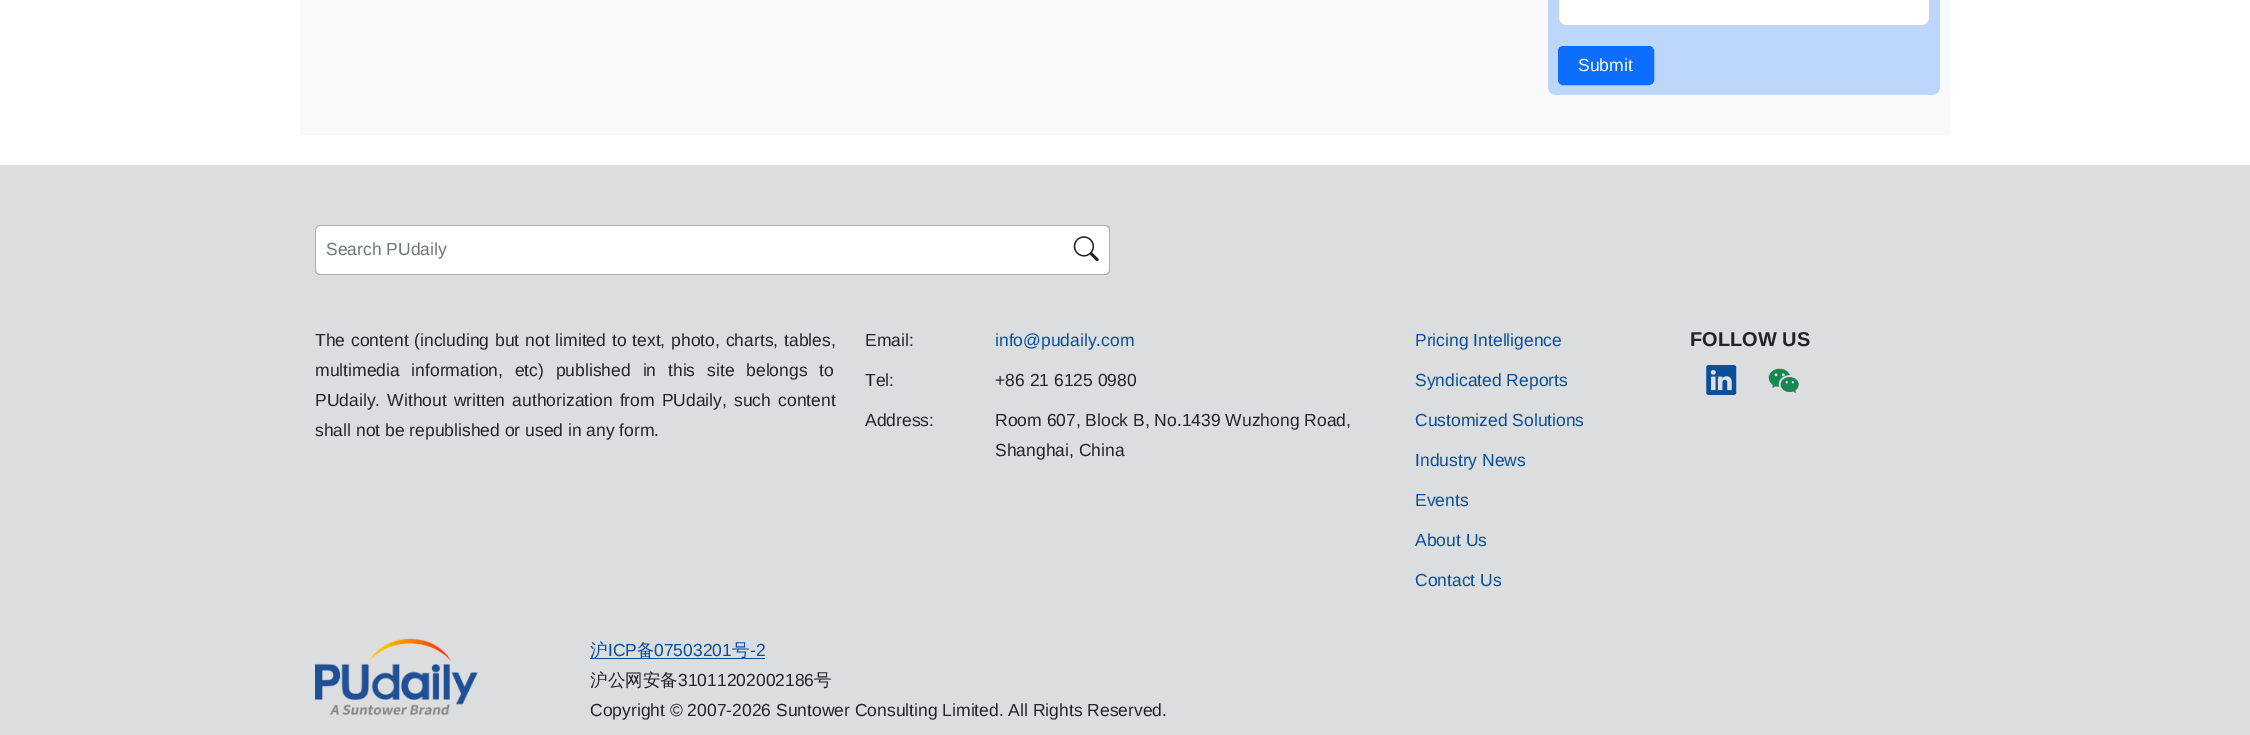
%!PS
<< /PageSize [2250 735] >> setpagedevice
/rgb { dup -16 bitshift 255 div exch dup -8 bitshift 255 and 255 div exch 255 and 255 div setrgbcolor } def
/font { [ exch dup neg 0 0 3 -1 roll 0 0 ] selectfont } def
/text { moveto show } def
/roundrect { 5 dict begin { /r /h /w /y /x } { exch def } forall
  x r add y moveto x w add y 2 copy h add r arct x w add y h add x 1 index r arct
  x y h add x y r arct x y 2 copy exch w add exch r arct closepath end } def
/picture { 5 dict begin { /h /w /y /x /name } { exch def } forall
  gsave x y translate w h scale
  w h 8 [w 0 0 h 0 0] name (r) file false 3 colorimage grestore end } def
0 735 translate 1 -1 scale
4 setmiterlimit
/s1 { /LiberationSans-Regular 17.5 font 16#FFFFFF rgb } def
/s2 { /LiberationSans-Regular 17.5 font 16#6C757D rgb } def
/s3 { /LiberationSans-Regular 17.5 font 16#212529 rgb } def
/s4 { /LiberationSans-Regular 17.5 font 16#0B4F9A rgb } def
/s5 { /LiberationSans-Bold 20 font 16#212529 rgb } def
/s6 { /WenQuanYiZenHei-Medium 17.5 font 16#0B4F9A rgb } def
/s7 { /WenQuanYiZenHei-Medium 17.5 font 16#212529 rgb } def
16#FFFFFF rgb
0 0 2250 735 rectfill
16#F8F9FA rgb
300 0 1650 135 rectfill
16#BDD6FB rgb
1548 -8 392 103 8 roundrect fill
16#FFFFFF rgb
1559 -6 370 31 6 roundrect fill
16#CED4DA rgb
1558.5 -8.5 371 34 7.5 roundrect stroke
16#0D6EFD rgb
1558.5 46.5 95 38 4.5 roundrect gsave fill grestore
stroke
s1
(Submit) 1578 71 text
16#DBDDDF rgb
0 165 2250 570 rectfill
16#ADAFB2 rgb
315 225 795 50 5 roundrect fill
16#FFFFFF rgb
321 226 moveto 1065 226 lineto 1065 274 lineto 321 274 lineto 318 274 316 272 316 269 curveto 316 231 lineto 316 228 318 226 321 226 curveto closepath fill
s2
(Search PUdaily) 326 255 text
16#FFFFFF rgb
1064 226 moveto 1104 226 lineto 1107 226 1109 228 1109 231 curveto 1109 269 lineto 1109 272 1107 274 1104 274 curveto 1064 274 lineto closepath fill
(pic1.raw) 1073 236 26 26 picture
16#212529 rgb
315 346 moveto 1 0 32 (The content \(including but not limited to text, photo, charts, tables,) widthshow
315 376 moveto 7 0 32 (multimedia information, etc\) published in this site belongs to) widthshow
315 406 moveto 2.25 0 32 (PUdaily. Without written authorization from PUdaily, such content) widthshow
(shall not be republished or used in any form.) 315 436 text
(Email:) 865 346 text
s4
(info@pudaily.com) 995 346 text
s3
(Tel:) 865 386 text
(+86 21 6125 0980) 995 386 text
(Address:) 865 426 text
(Room 607, Block B, No.1439 Wuzhong Road,) 995 426 text
(Shanghai, China) 995 456 text
s4
(Pricing Intelligence) 1415 346 text
(Syndicated Reports) 1415 386 text
(Customized Solutions) 1415 426 text
(Industry News) 1415 466 text
(Events) 1415 506 text
(About Us) 1415 546 text
(Contact Us) 1415 586 text
s5
(FOLLOW US) 1690 346 text
(pic2.raw) 1706 365 31 30 picture
(pic3.raw) 1768 368 31 25 picture
(pic4.raw) 315 638 163 77 picture
16#0B4F9A rgb
590 658 175 1 rectfill
s6
(沪) 590 656 text
s4
(ICP) 608 656 text
s6
(备) 637 656 text
s4
(07503201) 654 656 text
s6
(号) 732 656 text
s4
(-2) 750 656 text
s7
(沪公网安备) 590 686 text
s3
(31011202002186) 678 686 text
s7
(号) 814 686 text
s3
(Copyright © 2007-2026 Suntower Consulting Limited. All Rights Reserved.) 590 716 text
showpage
